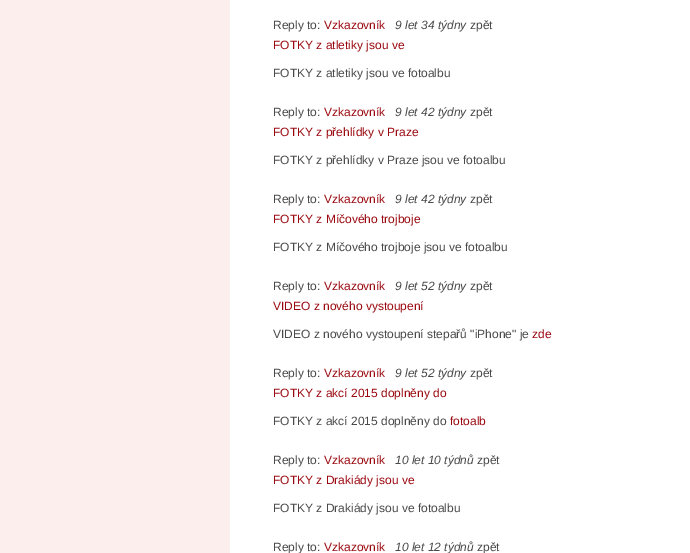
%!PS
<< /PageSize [690 553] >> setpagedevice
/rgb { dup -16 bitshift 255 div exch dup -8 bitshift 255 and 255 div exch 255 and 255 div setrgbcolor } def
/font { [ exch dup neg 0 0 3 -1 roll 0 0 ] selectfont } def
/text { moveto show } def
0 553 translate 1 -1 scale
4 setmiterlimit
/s1 { /LiberationSans-Regular 12 font 16#494949 rgb } def
/s2 { /LiberationSans-Regular 12 font 16#9A0910 rgb } def
/s3 { /LiberationSans-Italic 12 font 16#494949 rgb } def
16#FDEEEE rgb
0 0 690 553 rectfill
16#FFFFFF rgb
230 0 460 553 rectfill
s1
(Reply to:) 273 29 text
s2
(Vzkazovník) 324 29 text
s3
(9 let 34 týdny) 395 29 text
s1
(zpět) 470 29 text
s2
(FOTKY z atletiky jsou ve) 273 49 text
s1
(FOTKY z atletiky jsou ve fotoalbu) 273 77 text
(Reply to:) 273 116 text
s2
(Vzkazovník) 324 116 text
s3
(9 let 42 týdny) 395 116 text
s1
(zpět) 470 116 text
s2
(FOTKY z přehlídky v Praze) 273 136 text
s1
(FOTKY z přehlídky v Praze jsou ve fotoalbu) 273 164 text
(Reply to:) 273 203 text
s2
(Vzkazovník) 324 203 text
s3
(9 let 42 týdny) 395 203 text
s1
(zpět) 470 203 text
s2
(FOTKY z Míčového trojboje) 273 223 text
s1
(FOTKY z Míčového trojboje jsou ve fotoalbu) 273 251 text
(Reply to:) 273 290 text
s2
(Vzkazovník) 324 290 text
s3
(9 let 52 týdny) 395 290 text
s1
(zpět) 470 290 text
s2
(VIDEO z nového vystoupení) 273 310 text
s1
(VIDEO z nového vystoupení stepařů "iPhone" je) 273 338 text
s2
(zde) 532 338 text
s1
(Reply to:) 273 377 text
s2
(Vzkazovník) 324 377 text
s3
(9 let 52 týdny) 395 377 text
s1
(zpět) 470 377 text
s2
(FOTKY z akcí 2015 doplněny do) 273 397 text
s1
(FOTKY z akcí 2015 doplněny do) 273 425 text
s2
(fotoalb) 450 425 text
s1
(Reply to:) 273 464 text
s2
(Vzkazovník) 324 464 text
s3
(10 let 10 týdnů) 395 464 text
s1
(zpět) 477 464 text
s2
(FOTKY z Drakiády jsou ve) 273 484 text
s1
(FOTKY z Drakiády jsou ve fotoalbu) 273 512 text
(Reply to:) 273 551 text
s2
(Vzkazovník) 324 551 text
s3
(10 let 12 týdnů) 395 551 text
s1
(zpět) 477 551 text
showpage
